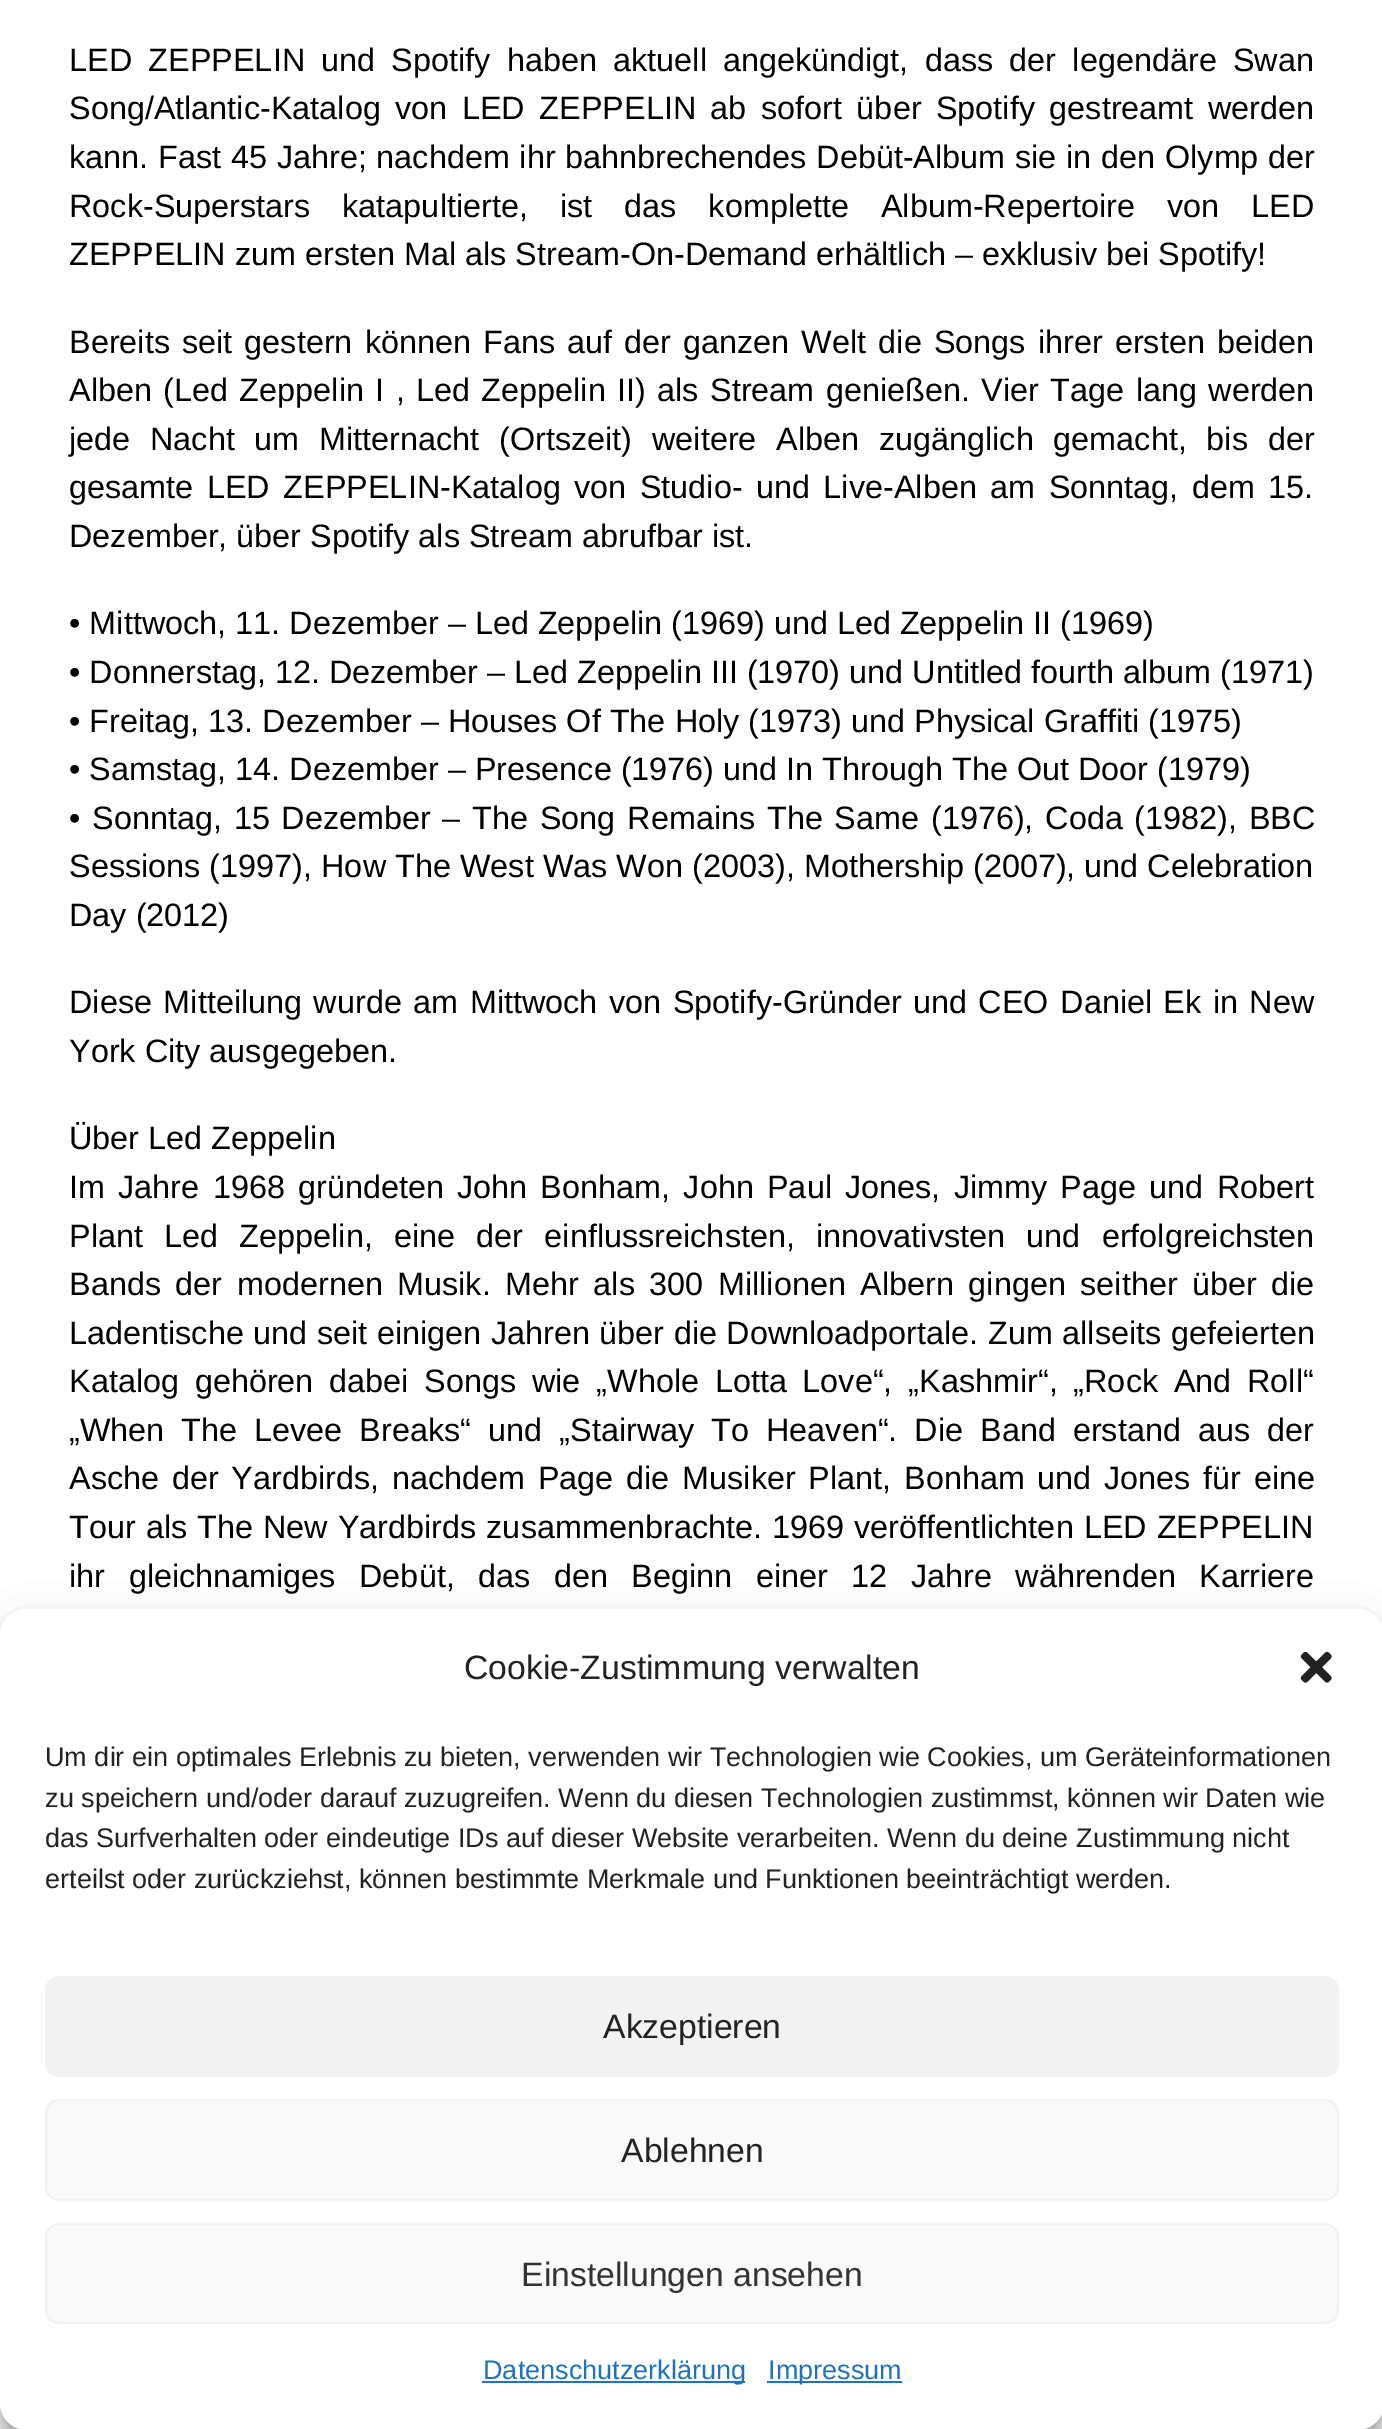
%!PS
<< /PageSize [1382 2429] /PageUsesTransparency true >> setpagedevice
/rgb { dup -16 bitshift 255 div exch dup -8 bitshift 255 and 255 div exch 255 and 255 div setrgbcolor } def
/font { [ exch dup neg 0 0 3 -1 roll 0 0 ] selectfont } def
/text { moveto show } def
/alpha { dup .setfillconstantalpha .setstrokeconstantalpha } def
/roundrect { 5 dict begin { /r /h /w /y /x } { exch def } forall
  x r add y moveto x w add y 2 copy h add r arct x w add y h add x 1 index r arct
  x y h add x y r arct x y 2 copy exch w add exch r arct closepath end } def
/shadow { 12 dict begin { /a /b /q /h /w /y /x } { exch def } forall gsave /was 0 def
  9 -2 -9 { dup b mul 4 div /e exch def 1 sub .425 mul 2.718 exch exp 1 add a .99 .min exch div /now exch def
    1 1 now sub 1 was sub div sub alpha /was now def
    w h .min e 2 mul add 0 gt { x e sub y e sub w e 2 mul add h e 2 mul add
      q e add b .6 mul add w h .min 2 div e add .min 0 .max roundrect fill } if } for grestore end } def
/picture { 5 dict begin { /h /w /y /x /name } { exch def } forall
  gsave x y translate w h scale
  w h 8 [w 0 0 h 0 0] name (r) file false 3 colorimage grestore end } def
0 .pushpdf14devicefilter
0 2429 translate 1 -1 scale
4 setmiterlimit
/s1 { /LiberationSans-Regular 32.4 font 16#000000 rgb } def
/s2 { /LiberationSans-Regular 33.75 font 16#222222 rgb } def
/s3 { /LiberationSans-Regular 27 font 16#222222 rgb } def
/s4 { /LiberationSans-Regular 33.75 font 16#333333 rgb } def
/s5 { /LiberationSans-Regular 27 font 16#1E73BE rgb } def
16#FFFFFF rgb
0 0 1382 2429 rectfill
/LiberationSans-Regular 32.4 font
16#000000 rgb
69 71 moveto 7.25 0 32 (LED ZEPPELIN und Spotify haben aktuell angekündigt, dass der legendäre Swan) widthshow
69 119 moveto 5.5 0 32 (Song/Atlantic-Katalog von LED ZEPPELIN ab sofort über Spotify gestreamt werden) widthshow
69 168 moveto 0.75 0 32 (kann. Fast 45 Jahre; nachdem ihr bahnbrechendes Debüt-Album sie in den Olymp der) widthshow
69 217 moveto 23 0 32 (Rock-Superstars katapultierte, ist das komplette Album-Repertoire von LED) widthshow
(ZEPPELIN zum ersten Mal als Stream-On-Demand erhältlich – exklusiv bei Spotify!) 69 265 text
69 353 moveto 3.1 0 32 (Bereits seit gestern können Fans auf der ganzen Welt die Songs ihrer ersten beiden) widthshow
69 401 moveto 2.4 0 32 (Alben \(Led Zeppelin I , Led Zeppelin II\) als Stream genießen. Vier Tage lang werden) widthshow
69 450 moveto 10.75 0 32 (jede Nacht um Mitternacht \(Ortszeit\) weitere Alben zugänglich gemacht, bis der) widthshow
69 498 moveto 4.5 0 32 (gesamte LED ZEPPELIN-Katalog von Studio- und Live-Alben am Sonntag, dem 15.) widthshow
(Dezember, über Spotify als Stream abrufbar ist.) 69 547 text
(• Mittwoch, 11. Dezember – Led Zeppelin \(1969\) und Led Zeppelin II \(1969\)) 69 634 text
(• Donnerstag, 12. Dezember – Led Zeppelin III \(1970\) und Untitled fourth album \(1971\)) 69 683 text
(• Freitag, 13. Dezember – Houses Of The Holy \(1973\) und Physical Graffiti \(1975\)) 69 732 text
(• Samstag, 14. Dezember – Presence \(1976\) und In Through The Out Door \(1979\)) 69 780 text
69 829 moveto 2.75 0 32 (• Sonntag, 15 Dezember – The Song Remains The Same \(1976\), Coda \(1982\), BBC) widthshow
(Sessions \(1997\), How The West Was Won \(2003\), Mothership \(2007\), und Celebration) 69 877 text
(Day \(2012\)) 69 926 text
69 1013 moveto 2.5 0 32 (Diese Mitteilung wurde am Mittwoch von Spotify-Gründer und CEO Daniel Ek in New) widthshow
(York City ausgegeben.) 69 1062 text
(Über Led Zeppelin) 69 1149 text
69 1198 moveto 4.25 0 32 (Im Jahre 1968 gründeten John Bonham, John Paul Jones, Jimmy Page und Robert) widthshow
69 1247 moveto 12.25 0 32 (Plant Led Zeppelin, eine der einflussreichsten, innovativsten und erfolgreichsten) widthshow
69 1295 moveto 5.5 0 32 (Bands der modernen Musik. Mehr als 300 Millionen Albern gingen seither über die) widthshow
69 1344 moveto 0.5 0 32 (Ladentische und seit einigen Jahren über die Downloadportale. Zum allseits gefeierten) widthshow
69 1392 moveto 6.75 0 32 (Katalog gehören dabei Songs wie „Whole Lotta Love“, „Kashmir“, „Rock And Roll“) widthshow
69 1441 moveto 8 0 32 („When The Levee Breaks“ und „Stairway To Heaven“. Die Band erstand aus der) widthshow
69 1489 moveto 3.75 0 32 (Asche der Yardbirds, nachdem Page die Musiker Plant, Bonham und Jones für eine) widthshow
69 1538 moveto 1 0 32 (Tour als The New Yardbirds zusammenbrachte. 1969 veröffentlichten LED ZEPPELIN) widthshow
69 1587 moveto 14.5 0 32 (ihr gleichnamiges Debüt, das den Beginn einer 12 Jahre währenden Karriere) widthshow
0 1622 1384 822 27 7 0.23 shadow
0 1631 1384 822 27 22.5 0.19 shadow
16#FFFFFF rgb
0 1609 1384 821 27 roundrect fill
s2
(Cookie-Zustimmung verwalten) 464 1679 text
(pic1.raw) 1300 1651 32 32 picture
s3
(Um dir ein optimales Erlebnis zu bieten, verwenden wir Technologien wie Cookies, um Geräteinformationen) 45 1766 text
(zu speichern und/oder darauf zuzugreifen. Wenn du diesen Technologien zustimmst, können wir Daten wie) 45 1807 text
(das Surfverhalten oder eindeutige IDs auf dieser Website verarbeiten. Wenn du deine Zustimmung nicht) 45 1847 text
(erteilst oder zurückziehst, können bestimmte Merkmale und Funktionen beeinträchtigt werden.) 45 1888 text
16#F2F2F2 rgb
46 1977 1292 99 13 roundrect gsave fill grestore
2 setlinewidth
stroke
s2
(Akzeptieren) 603 2038 text
16#F9F9F9 rgb
46 2100 1292 100 13 roundrect gsave fill grestore
16#F2F2F2 rgb
stroke
s2
(Ablehnen) 621 2162 text
16#F9F9F9 rgb
46 2224 1292 99 13 roundrect gsave fill grestore
16#F2F2F2 rgb
stroke
s4
(Einstellungen ansehen) 521 2286 text
16#1E73BE rgb
482 2381 263 2 rectfill
s5
(Datenschutzerklärung) 483 2379 text
767 2381 135 2 rectfill
(Impressum) 768 2379 text
.poppdf14devicefilter showpage
